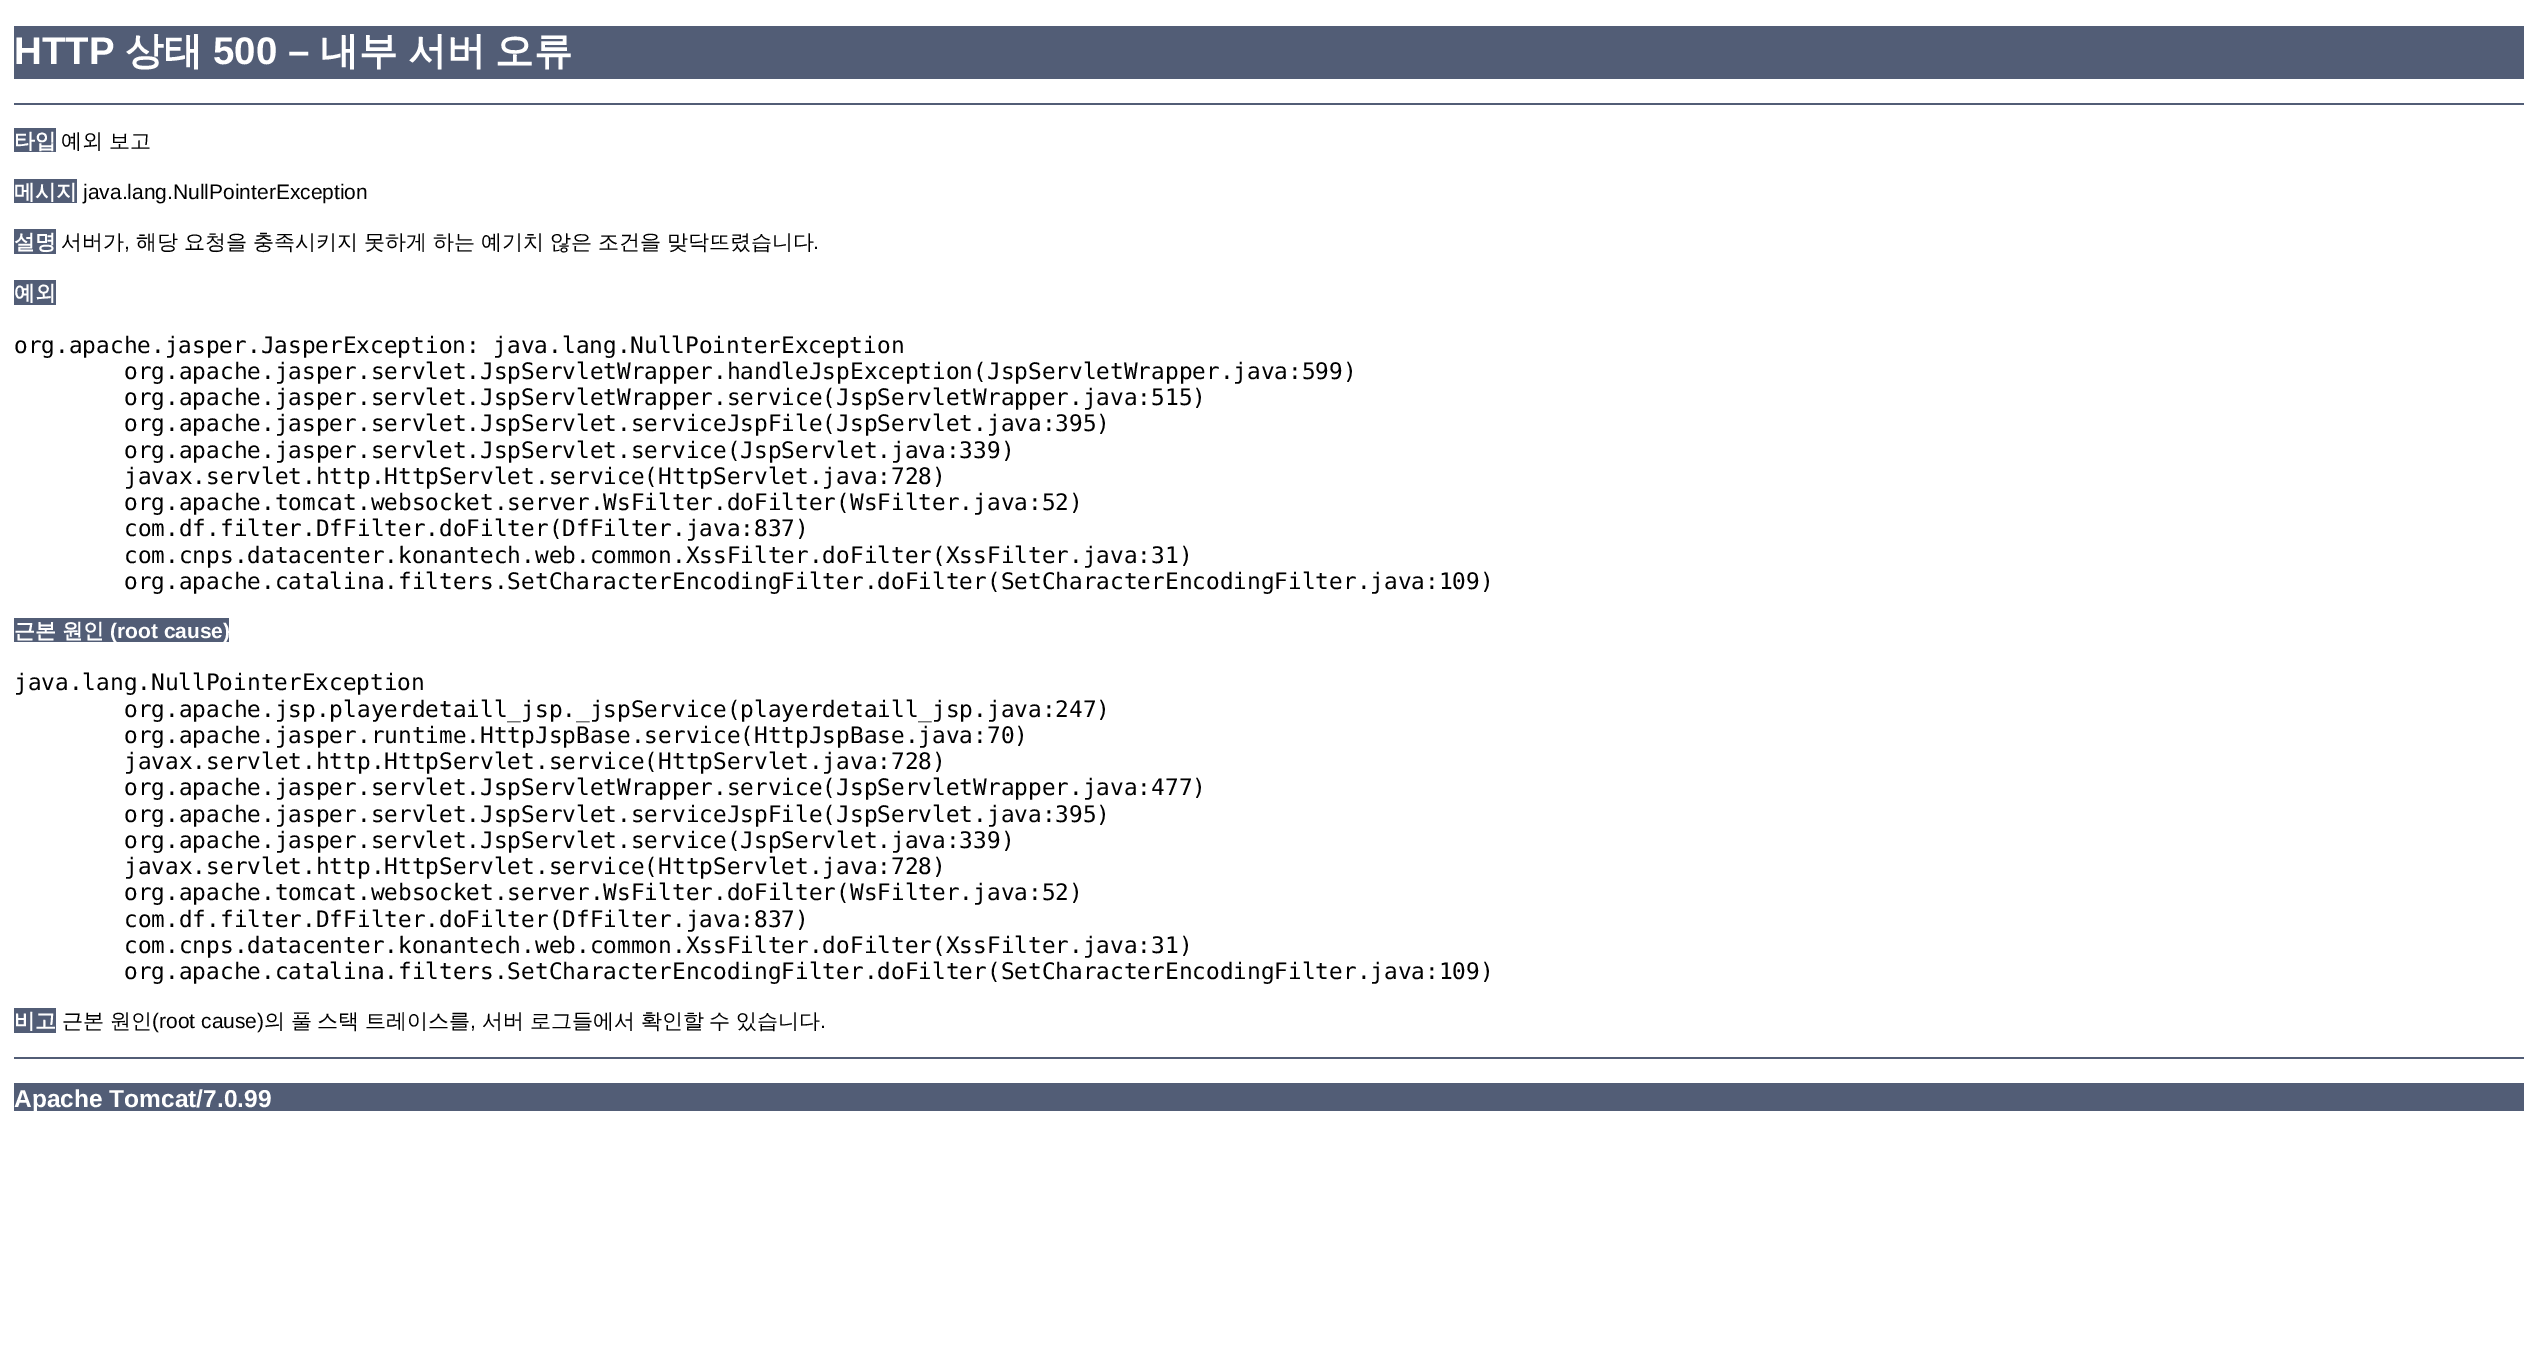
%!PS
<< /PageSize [2537 1372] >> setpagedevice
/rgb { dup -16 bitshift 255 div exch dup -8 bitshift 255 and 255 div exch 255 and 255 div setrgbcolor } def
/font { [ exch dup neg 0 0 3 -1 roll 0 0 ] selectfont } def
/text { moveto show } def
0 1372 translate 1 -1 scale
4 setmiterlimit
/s1 { /LiberationSans-Bold 38.5 font 16#FFFFFF rgb } def
/s2 { /WenQuanYiZenHei-Bold 38.5 font 16#FFFFFF rgb } def
/s3 { /WenQuanYiZenHei-Bold 21 font 16#FFFFFF rgb } def
/s4 { /WenQuanYiZenHei-Medium 21 font 16#000000 rgb } def
/s5 { /LiberationSans-Regular 21 font 16#000000 rgb } def
/s6 { /DejaVuSansMono-Regular 22.75 font 16#000000 rgb } def
/s7 { /LiberationSans-Bold 21 font 16#FFFFFF rgb } def
/s8 { /LiberationSans-Bold 24.5 font 16#FFFFFF rgb } def
16#FFFFFF rgb
0 0 2537 1372 rectfill
16#525D76 rgb
14 26 2510 53 rectfill
s1
(HTTP) 14 64 text
s2
(상태) 125 64 text
s1
(500 –) 213 64 text
s2
(내부) 320 64 text
(서버) 408 64 text
(오류) 495 64 text
16#525D76 rgb
14 103 2510 2 rectfill
14 128 42 24 rectfill
s3
(타입) 14 148 text
s4
(예외 보고) 61 148 text
16#525D76 rgb
14 179 63 24 rectfill
s3
(메시지) 14 199 text
s5
(java.lang.NullPointerException) 83 199 text
16#525D76 rgb
14 229 42 25 rectfill
s3
(설명) 14 249 text
s4
(서버가) 61 249 text
s5
(,) 124 249 text
/WenQuanYiZenHei-Medium 21 font
136 249 moveto -0.25 0 32 (해당 요청을 충족시키지 못하게 하는 예기치 않은 조건을 맞닥뜨렸습니다) widthshow
s5
(.) 813 249 text
16#525D76 rgb
14 280 42 25 rectfill
s3
(예외) 14 300 text
s6
(org.apache.jasper.JasperException: java.lang.NullPointerException) 14 353 text
(org.apache.jasper.servlet.JspServletWrapper.handleJspException\(JspServletWrapper.java:599\)) 124 379 text
(org.apache.jasper.servlet.JspServletWrapper.service\(JspServletWrapper.java:515\)) 124 405 text
(org.apache.jasper.servlet.JspServlet.serviceJspFile\(JspServlet.java:395\)) 124 431 text
(org.apache.jasper.servlet.JspServlet.service\(JspServlet.java:339\)) 124 458 text
(javax.servlet.http.HttpServlet.service\(HttpServlet.java:728\)) 124 484 text
(org.apache.tomcat.websocket.server.WsFilter.doFilter\(WsFilter.java:52\)) 124 510 text
(com.df.filter.DfFilter.doFilter\(DfFilter.java:837\)) 124 536 text
(com.cnps.datacenter.konantech.web.common.XssFilter.doFilter\(XssFilter.java:31\)) 124 563 text
(org.apache.catalina.filters.SetCharacterEncodingFilter.doFilter\(SetCharacterEncodingFilter.java:109\)) 124 589 text
16#525D76 rgb
14 618 215 24 rectfill
s3
(근본) 14 638 text
(원인) 62 638 text
s7
(\(root cause\)) 110 638 text
s6
(java.lang.NullPointerException) 14 690 text
(org.apache.jsp.playerdetaill_jsp._jspService\(playerdetaill_jsp.java:247\)) 124 717 text
(org.apache.jasper.runtime.HttpJspBase.service\(HttpJspBase.java:70\)) 124 743 text
(javax.servlet.http.HttpServlet.service\(HttpServlet.java:728\)) 124 769 text
(org.apache.jasper.servlet.JspServletWrapper.service\(JspServletWrapper.java:477\)) 124 795 text
(org.apache.jasper.servlet.JspServlet.serviceJspFile\(JspServlet.java:395\)) 124 822 text
(org.apache.jasper.servlet.JspServlet.service\(JspServlet.java:339\)) 124 848 text
(javax.servlet.http.HttpServlet.service\(HttpServlet.java:728\)) 124 874 text
(org.apache.tomcat.websocket.server.WsFilter.doFilter\(WsFilter.java:52\)) 124 900 text
(com.df.filter.DfFilter.doFilter\(DfFilter.java:837\)) 124 927 text
(com.cnps.datacenter.konantech.web.common.XssFilter.doFilter\(XssFilter.java:31\)) 124 953 text
(org.apache.catalina.filters.SetCharacterEncodingFilter.doFilter\(SetCharacterEncodingFilter.java:109\)) 124 979 text
16#525D76 rgb
14 1008 42 25 rectfill
s3
(비고) 14 1028 text
s4
(근본) 62 1028 text
(원인) 110 1028 text
s5
(\(root cause\)) 152 1028 text
s4
(의) 264 1028 text
(풀) 291 1028 text
(스택) 317 1028 text
(트레이스를) 365 1028 text
s5
(,) 470 1028 text
s4
(서버) 482 1028 text
(로그들에서) 530 1028 text
(확인할) 641 1028 text
(수) 709 1028 text
(있습니다) 736 1028 text
s5
(.) 820 1028 text
16#525D76 rgb
14 1057 2510 2 rectfill
14 1083 2510 28 rectfill
s8
(Apache Tomcat/7.0.99) 14 1107 text
showpage
